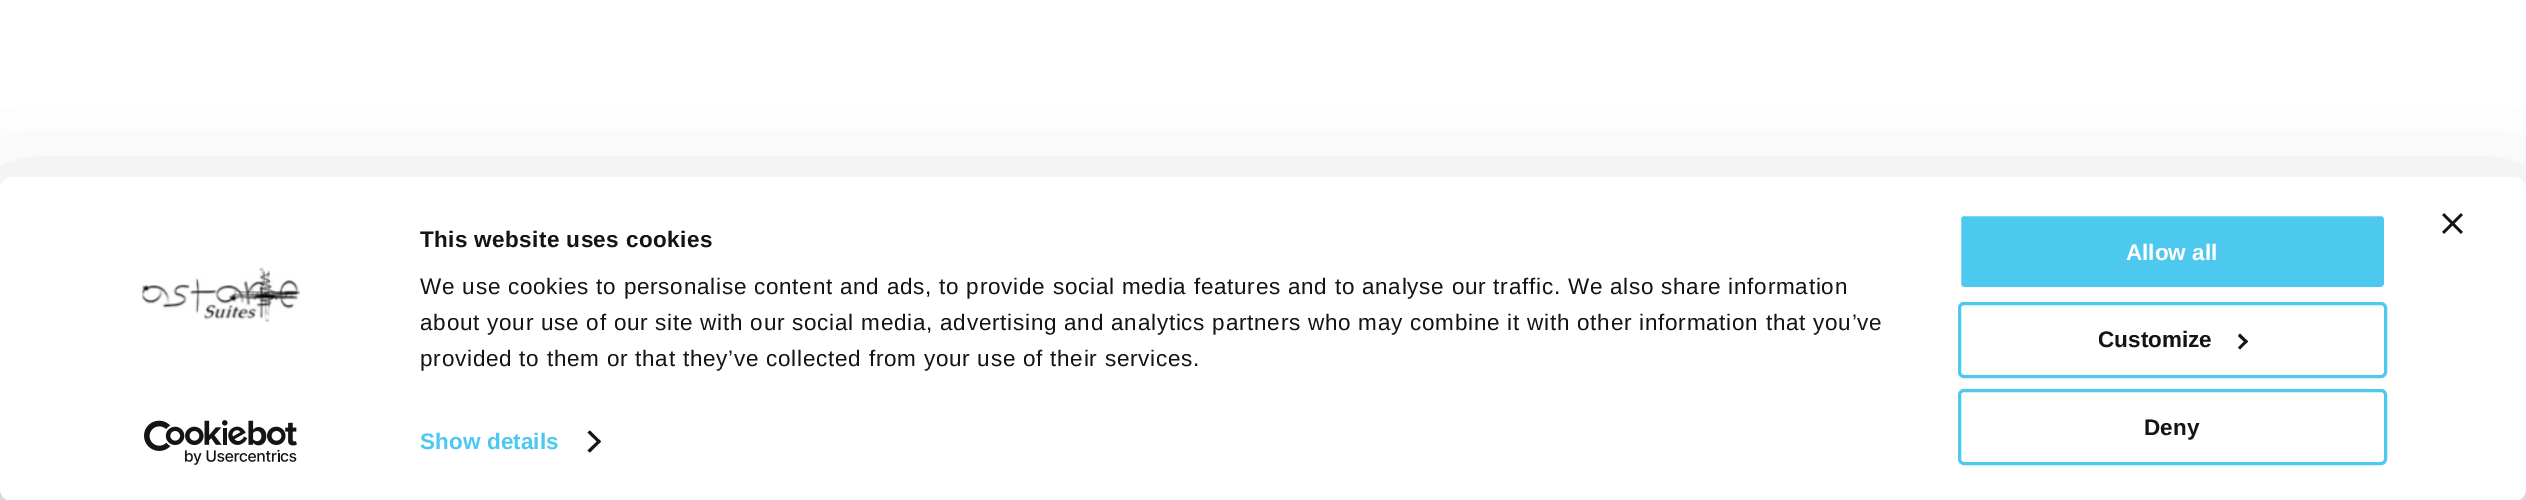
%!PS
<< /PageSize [2526 500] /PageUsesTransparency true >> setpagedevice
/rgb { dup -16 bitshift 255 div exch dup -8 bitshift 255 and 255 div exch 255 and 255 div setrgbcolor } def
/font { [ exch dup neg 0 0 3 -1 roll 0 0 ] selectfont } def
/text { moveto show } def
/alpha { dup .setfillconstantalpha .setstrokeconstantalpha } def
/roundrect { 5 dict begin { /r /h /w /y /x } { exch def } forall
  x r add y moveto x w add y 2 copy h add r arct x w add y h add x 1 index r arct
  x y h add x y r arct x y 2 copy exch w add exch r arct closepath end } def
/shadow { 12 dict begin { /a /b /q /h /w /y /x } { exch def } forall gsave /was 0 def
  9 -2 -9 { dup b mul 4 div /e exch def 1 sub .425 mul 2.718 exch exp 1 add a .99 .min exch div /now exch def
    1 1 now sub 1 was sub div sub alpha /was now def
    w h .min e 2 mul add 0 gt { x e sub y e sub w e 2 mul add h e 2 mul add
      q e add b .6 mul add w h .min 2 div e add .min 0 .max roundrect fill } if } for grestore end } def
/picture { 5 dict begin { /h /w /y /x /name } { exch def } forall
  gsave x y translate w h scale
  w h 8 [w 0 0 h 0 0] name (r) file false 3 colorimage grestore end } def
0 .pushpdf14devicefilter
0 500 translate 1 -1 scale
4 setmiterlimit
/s1 { /LiberationSans-Bold 22.5 font 16#FFFFFF rgb } def
/s2 { /LiberationSans-Bold 22.5 font 16#141414 rgb } def
16#FFFFFF rgb
0 0 2526 500 rectfill
16#000000 rgb
0 222 2526 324 12 52.5 0.3 shadow
16#FFFFFF rgb
0 177 2526 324 12 roundrect fill
(pic1.raw) 2442 213 21 21 picture
(pic2.raw) 142 267 158 56 picture
(pic3.raw) 144 420 153 45 picture
/LiberationSans-Bold 22.5 font
16#141414 rgb
420 247 moveto 0.4 0 (This website uses cookies) ashow
/LiberationSans-Regular 22.5 font
420 294 moveto 0.75 0 (We use cookies to personalise content and ads, to provide social media features and to analyse our traffic. We also share information) ashow
420 330 moveto 0.75 0 (about your use of our site with our social media, advertising and analytics partners who may combine it with other information that you’ve) ashow
420 366 moveto 0.75 0 (provided to them or that they’ve collected from your use of their services.) ashow
/LiberationSans-Bold 22.5 font
16#4DC8EE rgb
420 449 moveto 0.1 0 (Show details) ashow
16#141414 rgb
590 430.5 moveto 601 441.5 lineto 599 443.5 lineto 587.5 432.5 lineto closepath fill
599 439.5 moveto 601 441.5 lineto 590 452.5 lineto 587.5 450.5 lineto closepath fill
16#4DC8EE rgb
1959.5 214.5 426 74 4.5 roundrect gsave fill grestore
16#FFFFFF rgb
3 setlinewidth
stroke
(Allow all) 2126 260 text
16#4DC8EE rgb
1959.5 303.5 426 73 4.5 roundrect stroke
s2
(Customize) 2098 347 text
2240 333.5 moveto 2248 341.5 lineto 2246 343.5 lineto 2238 336 lineto closepath fill
2246 339.5 moveto 2248 341.5 lineto 2240 349.5 lineto 2238 347.5 lineto closepath fill
16#4DC8EE rgb
1959.5 390.5 426 73 4.5 roundrect stroke
s2
(Deny) 2144 435 text
.poppdf14devicefilter showpage
